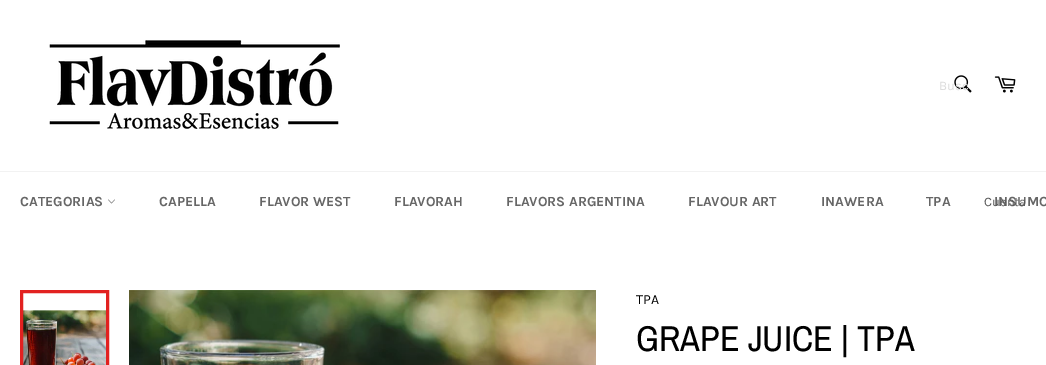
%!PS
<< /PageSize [1046 365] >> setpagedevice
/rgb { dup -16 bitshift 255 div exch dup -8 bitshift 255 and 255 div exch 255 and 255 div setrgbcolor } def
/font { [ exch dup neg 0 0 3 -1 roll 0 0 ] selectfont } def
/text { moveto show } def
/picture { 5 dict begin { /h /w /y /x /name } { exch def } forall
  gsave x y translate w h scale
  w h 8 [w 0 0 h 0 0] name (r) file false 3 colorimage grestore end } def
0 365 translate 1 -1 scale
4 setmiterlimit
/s1 { /Karla-Regular 13 font 16#DCDCDC rgb } def
/s2 { /Karla-Bold 14 font 16#666666 rgb } def
/s3 { /Karla-Regular 13 font 16#565656 rgb } def
/s4 { /Karla-Regular 14 font 16#000000 rgb } def
/s5 { /ArchivoNarrow-Regular 36 font 16#000000 rgb } def
16#FFFFFF rgb
0 0 1046 365 rectfill
(pic1.raw) 49 40 291 89 picture
(pic2.raw) 954 75 18 18 picture
s1
(Busc) 939 90 text
(pic3.raw) 994 76 22 17 picture
16#F2F2F2 rgb
0 171 1046 1 rectfill
s2
(CATEGORIAS) 20 206 text
(pic4.raw) 108 199 7 5 picture
(CAPELLA) 159 206 text
(FLAVOR WEST) 259 206 text
(FLAVORAH) 394 206 text
(FLAVORS ARGENTINA) 506 206 text
(FLAVOUR ART) 688 206 text
(INAWERA) 821 206 text
(TPA) 926 206 text
(INSUMO) 994 206 text
s3
(Cuenta) 984 206 text
(pic5.raw) 23 310 83 55 picture
16#E22120 rgb
3 setlinewidth
21.5 291.5 86 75 rectstroke
(pic6.raw) 129 290 467 75 picture
s4
(TPA) 636 304 text
s5
(GRAPE JUICE | TPA) 636 351 text
showpage
